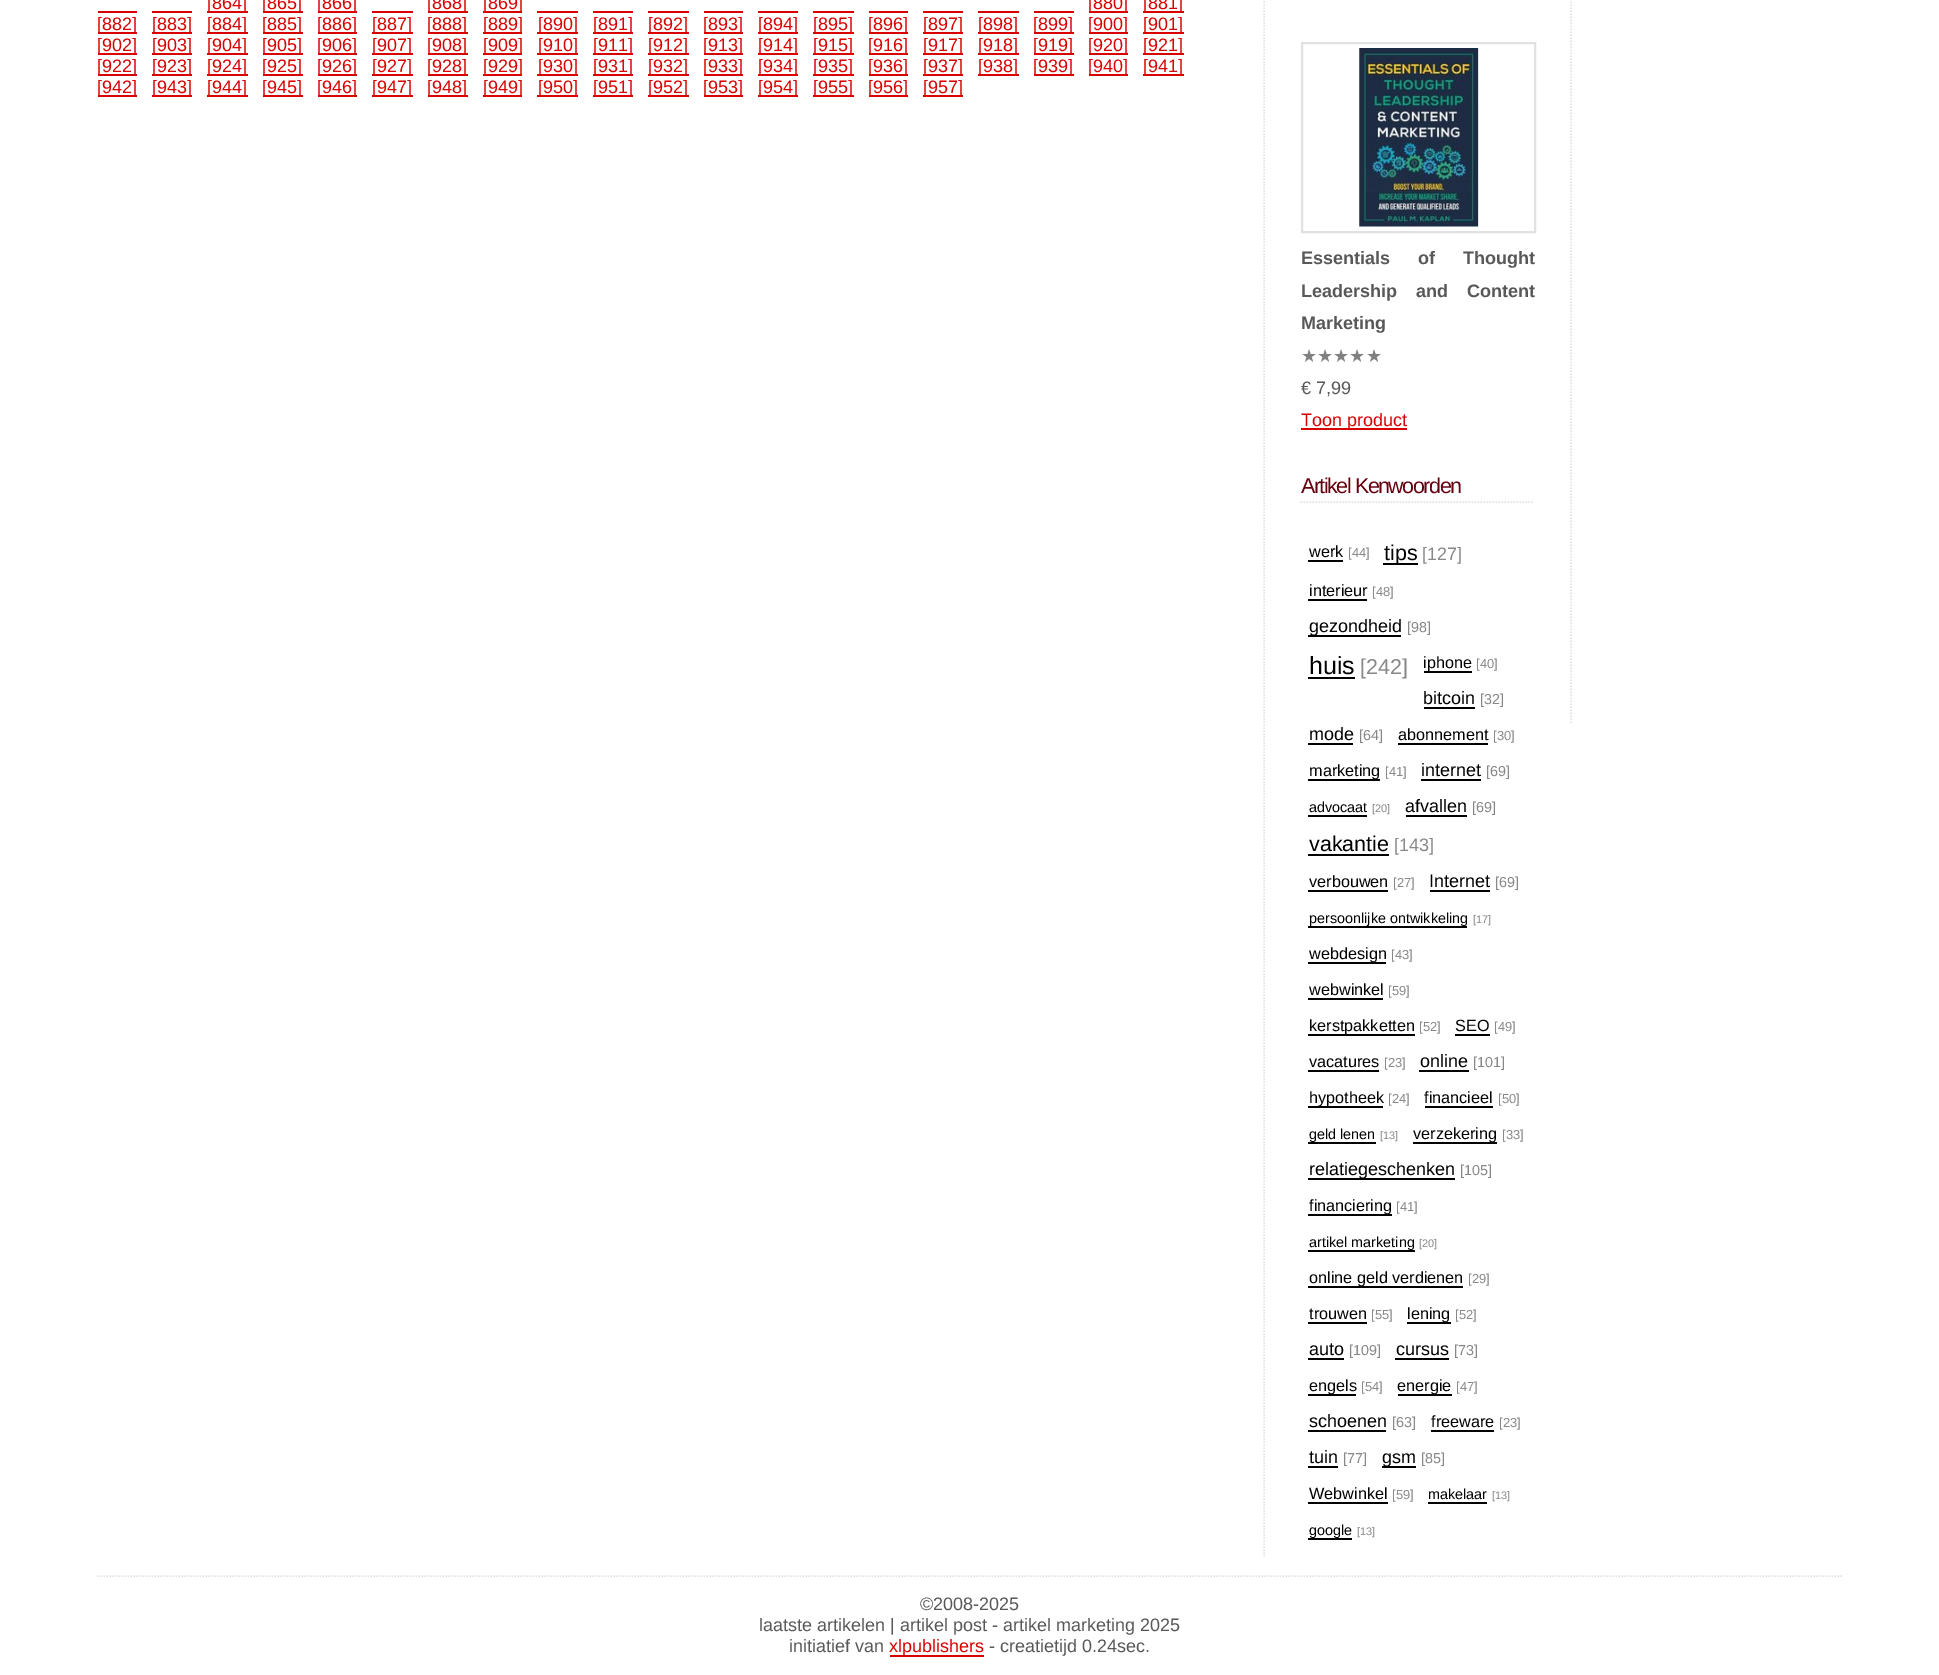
%!PS
<< /PageSize [1939 1675] >> setpagedevice
/rgb { dup -16 bitshift 255 div exch dup -8 bitshift 255 and 255 div exch 255 and 255 div setrgbcolor } def
/font { [ exch dup neg 0 0 3 -1 roll 0 0 ] selectfont } def
/text { moveto show } def
/picture { 5 dict begin { /h /w /y /x /name } { exch def } forall
  gsave x y translate w h scale
  w h 8 [w 0 0 h 0 0] name (r) file false 3 colorimage grestore end } def
0 1675 translate 1 -1 scale
4 setmiterlimit
/s1 { /LiberationSans-Regular 18 font 16#D90000 rgb } def
/s2 { /LiberationSans-Bold 18 font 16#585858 rgb } def
/s3 { /DejaVuSans-Regular 18 font 16#808080 rgb } def
/s4 { /LiberationSans-Regular 18 font 16#585858 rgb } def
/s5 { /LiberationSans-Regular 16.25 font 16#000000 rgb } def
/s6 { /LiberationSans-Regular 13 font 16#888888 rgb } def
/s7 { /LiberationSans-Regular 21.5 font 16#000000 rgb } def
/s8 { /LiberationSans-Regular 18 font 16#888888 rgb } def
/s9 { /LiberationSans-Regular 18 font 16#000000 rgb } def
/s10 { /LiberationSans-Regular 14.4 font 16#888888 rgb } def
/s11 { /LiberationSans-Regular 25 font 16#000000 rgb } def
/s12 { /LiberationSans-Regular 21.5 font 16#888888 rgb } def
/s13 { /LiberationSans-Regular 14.4 font 16#000000 rgb } def
/s14 { /LiberationSans-Regular 11 font 16#888888 rgb } def
16#FFFFFF rgb
0 0 1939 1675 rectfill
16#D90000 rgb
98 11 39 2 rectfill
152 11 40 2 rectfill
207 11 41 2 rectfill
s1
([864]) 207 9 text
263 11 40 2 rectfill
([865]) 262 9 text
318 11 39 2 rectfill
([866]) 317 9 text
372 11 41 2 rectfill
428 11 40 2 rectfill
([868]) 427 9 text
483 11 39 2 rectfill
([869]) 483 9 text
537 11 41 2 rectfill
593 11 40 2 rectfill
648 11 41 2 rectfill
704 11 39 2 rectfill
758 11 40 2 rectfill
813 11 41 2 rectfill
869 11 39 2 rectfill
923 11 40 2 rectfill
978 11 41 2 rectfill
1034 11 40 2 rectfill
1089 11 39 2 rectfill
([880]) 1088 9 text
1143 11 41 2 rectfill
([881]) 1143 9 text
98 32 39 2 rectfill
([882]) 97 30 text
152 32 40 2 rectfill
([883]) 152 30 text
207 32 41 2 rectfill
([884]) 207 30 text
263 32 40 2 rectfill
([885]) 262 30 text
318 32 39 2 rectfill
([886]) 317 30 text
372 32 41 2 rectfill
([887]) 372 30 text
428 32 40 2 rectfill
([888]) 427 30 text
483 32 39 2 rectfill
([889]) 483 30 text
537 32 41 2 rectfill
([890]) 538 30 text
593 32 40 2 rectfill
([891]) 593 30 text
648 32 41 2 rectfill
([892]) 648 30 text
704 32 39 2 rectfill
([893]) 703 30 text
758 32 40 2 rectfill
([894]) 758 30 text
813 32 41 2 rectfill
([895]) 813 30 text
869 32 39 2 rectfill
([896]) 868 30 text
923 32 40 2 rectfill
([897]) 923 30 text
978 32 41 2 rectfill
([898]) 978 30 text
1034 32 40 2 rectfill
([899]) 1033 30 text
1089 32 39 2 rectfill
([900]) 1088 30 text
1143 32 41 2 rectfill
([901]) 1143 30 text
98 53 39 2 rectfill
([902]) 97 51 text
152 53 40 2 rectfill
([903]) 152 51 text
207 53 41 2 rectfill
([904]) 207 51 text
263 53 40 2 rectfill
([905]) 262 51 text
318 53 39 2 rectfill
([906]) 317 51 text
372 53 41 2 rectfill
([907]) 372 51 text
428 53 40 2 rectfill
([908]) 427 51 text
483 53 39 2 rectfill
([909]) 483 51 text
537 53 41 2 rectfill
([910]) 538 51 text
593 53 40 2 rectfill
([911]) 593 51 text
648 53 41 2 rectfill
([912]) 648 51 text
704 53 39 2 rectfill
([913]) 703 51 text
758 53 40 2 rectfill
([914]) 758 51 text
813 53 41 2 rectfill
([915]) 813 51 text
869 53 39 2 rectfill
([916]) 868 51 text
923 53 40 2 rectfill
([917]) 923 51 text
978 53 41 2 rectfill
([918]) 978 51 text
1034 53 40 2 rectfill
([919]) 1033 51 text
1089 53 39 2 rectfill
([920]) 1088 51 text
1143 53 41 2 rectfill
([921]) 1143 51 text
98 74 39 2 rectfill
([922]) 97 72 text
152 74 40 2 rectfill
([923]) 152 72 text
207 74 41 2 rectfill
([924]) 207 72 text
263 74 40 2 rectfill
([925]) 262 72 text
318 74 39 2 rectfill
([926]) 317 72 text
372 74 41 2 rectfill
([927]) 372 72 text
428 74 40 2 rectfill
([928]) 427 72 text
483 74 39 2 rectfill
([929]) 483 72 text
537 74 41 2 rectfill
([930]) 538 72 text
593 74 40 2 rectfill
([931]) 593 72 text
648 74 41 2 rectfill
([932]) 648 72 text
704 74 39 2 rectfill
([933]) 703 72 text
758 74 40 2 rectfill
([934]) 758 72 text
813 74 41 2 rectfill
([935]) 813 72 text
869 74 39 2 rectfill
([936]) 868 72 text
923 74 40 2 rectfill
([937]) 923 72 text
978 74 41 2 rectfill
([938]) 978 72 text
1034 74 40 2 rectfill
([939]) 1033 72 text
1089 74 39 2 rectfill
([940]) 1088 72 text
1143 74 41 2 rectfill
([941]) 1143 72 text
98 95 39 2 rectfill
([942]) 97 93 text
152 95 40 2 rectfill
([943]) 152 93 text
207 95 41 2 rectfill
([944]) 207 93 text
263 95 40 2 rectfill
([945]) 262 93 text
318 95 39 2 rectfill
([946]) 317 93 text
372 95 41 2 rectfill
([947]) 372 93 text
428 95 40 2 rectfill
([948]) 427 93 text
483 95 39 2 rectfill
([949]) 483 93 text
537 95 41 2 rectfill
([950]) 538 93 text
593 95 40 2 rectfill
([951]) 593 93 text
648 95 41 2 rectfill
([952]) 648 93 text
704 95 39 2 rectfill
([953]) 703 93 text
758 95 40 2 rectfill
([954]) 758 93 text
813 95 41 2 rectfill
([955]) 813 93 text
869 95 39 2 rectfill
([956]) 868 93 text
923 95 40 2 rectfill
([957]) 923 93 text
16#E1E1E1 rgb
1.5 setlinewidth
[1.5 1.5] 0 setdash
1264 -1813.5 moveto 1264 1557 lineto stroke
2 setlinewidth
[] 0 setdash
1302 43 233 189 rectstroke
(pic1.raw) 1359 48 120 179 picture
/LiberationSans-Bold 18 font
16#585858 rgb
1301 264 moveto 23 0 32 (Essentials of Thought) widthshow
1301 297 moveto 14 0 32 (Leadership and Content) widthshow
(Marketing) 1301 329 text
s3
(★★★★★) 1301 362 text
s4
(€ 7,99) 1301 394 text
16#D90000 rgb
1301 428 106 2 rectfill
(Toon product) 1301 426 text
16#E1E1E1 rgb
1.5 setlinewidth
[1.5 1.5] 0 setdash
1300.5 502 moveto 1534.5 502 lineto stroke
/LiberationSans-Regular 21.5 font
16#66000F rgb
1301 493 moveto -1.5 0 (Artikel Kenwoorden) ashow
s5
(werk) 1309 557 text
1308 560 35 2 rectfill
s6
([44]) 1348 557 text
16#000000 rgb
1383 563 35 2 rectfill
s7
(tips) 1384 560 text
s8
([127]) 1422 560 text
s5
(interieur) 1309 596 text
1308 599 59 2 rectfill
s6
([48]) 1372 596 text
16#000000 rgb
1308 635 93 2 rectfill
s9
(gezondheid) 1309 632 text
s10
([98]) 1407 632 text
s11
(huis) 1309 674 text
1308 677 47 2 rectfill
s12
([242]) 1360 674 text
16#000000 rgb
1424 671 48 2 rectfill
s5
(iphone) 1423 668 text
s6
([40]) 1476 668 text
s9
(bitcoin) 1423 704 text
1424 707 51 2 rectfill
s10
([32]) 1480 704 text
s9
(mode) 1309 740 text
1308 743 45 2 rectfill
s10
([64]) 1359 740 text
s5
(abonnement) 1398 740 text
1398 743 90 2 rectfill
s6
([30]) 1493 740 text
16#000000 rgb
1308 779 72 2 rectfill
s5
(marketing) 1309 776 text
s6
([41]) 1385 776 text
s9
(internet) 1421 776 text
1421 779 60 2 rectfill
s10
([69]) 1486 776 text
s13
(advocaat) 1309 812 text
1308 815 59 2 rectfill
s14
([20]) 1372 812 text
s9
(afvallen) 1405 812 text
1406 815 61 2 rectfill
s10
([69]) 1472 812 text
s7
(vakantie) 1309 851 text
1308 854 81 2 rectfill
s8
([143]) 1394 851 text
s5
(verbouwen) 1309 887 text
1308 890 80 2 rectfill
s6
([27]) 1393 887 text
s9
(Internet) 1429 887 text
1430 890 60 2 rectfill
s10
([69]) 1495 887 text
s13
(persoonlijke ontwikkeling) 1309 923 text
1308 926 159 2 rectfill
s14
([17]) 1473 923 text
16#000000 rgb
1308 962 78 2 rectfill
s5
(webdesign) 1309 959 text
s6
([43]) 1391 959 text
s5
(webwinkel) 1309 995 text
1308 998 75 2 rectfill
s6
([59]) 1388 995 text
16#000000 rgb
1308 1034 107 2 rectfill
s5
(kerstpakketten) 1309 1031 text
s6
([52]) 1419 1031 text
s5
(SEO) 1455 1031 text
1455 1034 35 2 rectfill
s6
([49]) 1494 1031 text
s5
(vacatures) 1309 1067 text
1308 1070 71 2 rectfill
s6
([23]) 1384 1067 text
s9
(online) 1420 1067 text
1419 1070 50 2 rectfill
s10
([101]) 1473 1067 text
16#000000 rgb
1308 1106 75 2 rectfill
s5
(hypotheek) 1309 1103 text
s6
([24]) 1388 1103 text
s5
(financieel) 1424 1103 text
1425 1106 68 2 rectfill
s6
([50]) 1498 1103 text
s13
(geld lenen) 1309 1139 text
1308 1142 68 2 rectfill
s14
([13]) 1380 1139 text
16#000000 rgb
1413 1142 84 2 rectfill
s5
(verzekering) 1413 1139 text
s6
([33]) 1502 1139 text
16#000000 rgb
1308 1178 147 2 rectfill
s9
(relatiegeschenken) 1309 1175 text
s10
([105]) 1460 1175 text
16#000000 rgb
1308 1214 84 2 rectfill
s5
(financiering) 1309 1211 text
s6
([41]) 1396 1211 text
s13
(artikel marketing) 1309 1247 text
1308 1250 107 2 rectfill
s14
([20]) 1419 1247 text
16#000000 rgb
1308 1286 155 2 rectfill
s5
(online geld verdienen) 1309 1283 text
s6
([29]) 1468 1283 text
s5
(trouwen) 1309 1319 text
1308 1322 59 2 rectfill
s6
([55]) 1371 1319 text
16#000000 rgb
1407 1322 44 2 rectfill
s5
(lening) 1407 1319 text
s6
([52]) 1455 1319 text
s9
(auto) 1309 1355 text
1308 1358 36 2 rectfill
s10
([109]) 1349 1355 text
s9
(cursus) 1396 1355 text
1395 1358 54 2 rectfill
s10
([73]) 1454 1355 text
16#000000 rgb
1308 1394 48 2 rectfill
s5
(engels) 1309 1391 text
s6
([54]) 1361 1391 text
16#000000 rgb
1398 1394 54 2 rectfill
s5
(energie) 1397 1391 text
s6
([47]) 1456 1391 text
s9
(schoenen) 1309 1427 text
1308 1430 78 2 rectfill
s10
([63]) 1392 1427 text
s5
(freeware) 1431 1427 text
1431 1430 63 2 rectfill
s6
([23]) 1499 1427 text
s9
(tuin) 1309 1463 text
1308 1466 30 2 rectfill
s10
([77]) 1343 1463 text
16#000000 rgb
1382 1466 34 2 rectfill
s9
(gsm) 1382 1463 text
s10
([85]) 1421 1463 text
s5
(Webwinkel) 1309 1499 text
1308 1502 80 2 rectfill
s6
([59]) 1392 1499 text
s13
(makelaar) 1428 1499 text
1428 1502 59 2 rectfill
s14
([13]) 1492 1499 text
s13
(google) 1309 1535 text
1308 1538 44 2 rectfill
s14
([13]) 1357 1535 text
16#E1E1E1 rgb
1571 -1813.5 moveto 1571 723 lineto stroke
97.5 1576 moveto 1842 1576 lineto stroke
s4
(©2008-2025) 920 1610 text
(laatste artikelen | artikel post - artikel marketing 2025) 759 1631 text
(initiatief van) 789 1652 text
16#D90000 rgb
890 1655 94 2 rectfill
(xlpublishers) 889 1652 text
s4
(- creatietijd 0.24sec.) 989 1652 text
showpage
